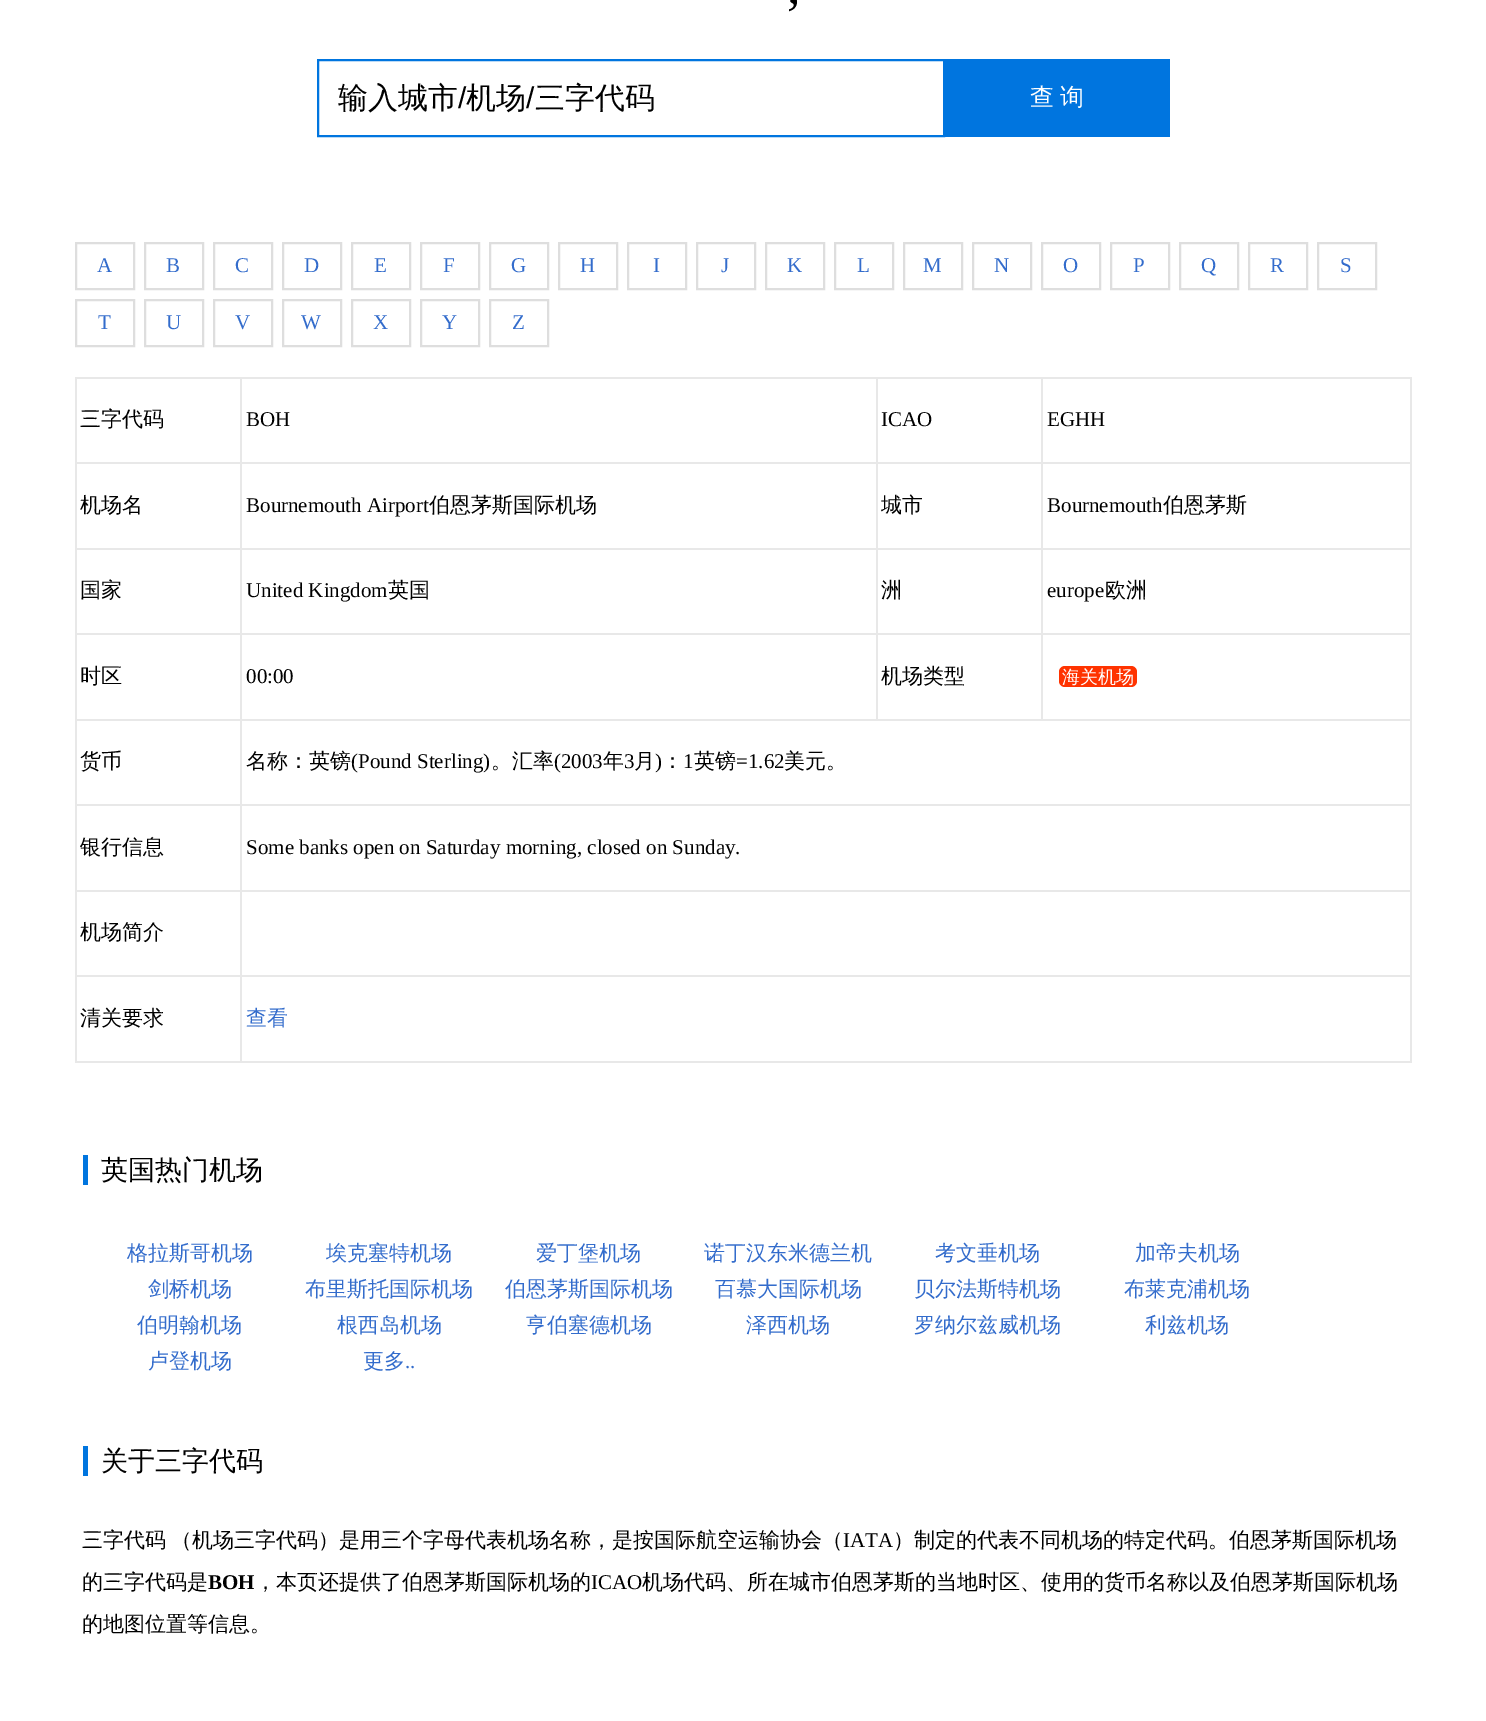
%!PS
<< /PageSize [1486 1721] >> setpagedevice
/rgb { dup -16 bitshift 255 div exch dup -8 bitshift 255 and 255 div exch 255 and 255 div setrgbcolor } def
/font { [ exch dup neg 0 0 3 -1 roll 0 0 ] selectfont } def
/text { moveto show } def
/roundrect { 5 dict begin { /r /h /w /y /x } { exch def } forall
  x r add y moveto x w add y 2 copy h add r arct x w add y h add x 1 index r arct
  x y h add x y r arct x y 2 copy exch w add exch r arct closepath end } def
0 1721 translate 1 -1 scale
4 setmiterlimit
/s1 { /LiberationSerif-Regular 54 font 16#000000 rgb } def
/s2 { /WenQuanYiZenHei-Medium 30 font 16#000000 rgb } def
/s3 { /LiberationSans-Regular 30 font 16#000000 rgb } def
/s4 { /LiberationSerif-Regular 21 font 16#336CCC rgb } def
/s5 { /WenQuanYiZenHei-Medium 21 font 16#000000 rgb } def
/s6 { /LiberationSerif-Regular 21 font 16#000000 rgb } def
/s7 { /WenQuanYiZenHei-Medium 18 font 16#FFFFFF rgb } def
/s8 { /WenQuanYiZenHei-Medium 21 font 16#336CCC rgb } def
/s9 { /WenQuanYiZenHei-Medium 27 font 16#000000 rgb } def
/s10 { /LiberationSerif-Bold 21 font 16#000000 rgb } def
16#FFFFFF rgb
0 0 1486 1721 rectfill
s1
(,) 787 3 text
16#0075DF rgb
2 setlinewidth
318 60 626 76 rectstroke
s2
(输入城市) 338 108 text
s3
(/) 458 108 text
s2
(机场) 466 108 text
s3
(/) 526 108 text
s2
(三字代码) 535 108 text
16#0075DF rgb
945 59 225 78 rectfill
/WenQuanYiZenHei-Medium 24 font
16#FFFFFF rgb
1030 105 moveto -1 0 32 (查 询) widthshow
16#DEDEDE rgb
76 243 58 46 rectstroke
s4
(A) 97 272 text
16#DEDEDE rgb
145 243 58 46 rectstroke
s4
(B) 166 272 text
16#DEDEDE rgb
214 243 58 46 rectstroke
s4
(C) 235 272 text
16#DEDEDE rgb
283 243 58 46 rectstroke
s4
(D) 304 272 text
16#DEDEDE rgb
352 243 58 46 rectstroke
s4
(E) 374 272 text
16#DEDEDE rgb
421 243 58 46 rectstroke
s4
(F) 443 272 text
16#DEDEDE rgb
490 243 58 46 rectstroke
s4
(G) 511 272 text
16#DEDEDE rgb
559 243 58 46 rectstroke
s4
(H) 580 272 text
16#DEDEDE rgb
628 243 58 46 rectstroke
s4
(I) 653 272 text
16#DEDEDE rgb
697 243 58 46 rectstroke
s4
(J) 721 272 text
16#DEDEDE rgb
766 243 58 46 rectstroke
s4
(K) 787 272 text
16#DEDEDE rgb
835 243 58 46 rectstroke
s4
(L) 857 272 text
16#DEDEDE rgb
904 243 58 46 rectstroke
s4
(M) 923 272 text
16#DEDEDE rgb
973 243 58 46 rectstroke
s4
(N) 994 272 text
16#DEDEDE rgb
1042 243 58 46 rectstroke
s4
(O) 1063 272 text
16#DEDEDE rgb
1111 243 58 46 rectstroke
s4
(P) 1133 272 text
16#DEDEDE rgb
1180 243 58 46 rectstroke
s4
(Q) 1201 272 text
16#DEDEDE rgb
1249 243 58 46 rectstroke
s4
(R) 1270 272 text
16#DEDEDE rgb
1318 243 58 46 rectstroke
s4
(S) 1340 272 text
16#DEDEDE rgb
76 300 58 46 rectstroke
s4
(T) 98 329 text
16#DEDEDE rgb
145 300 58 46 rectstroke
s4
(U) 166 329 text
16#DEDEDE rgb
214 300 58 46 rectstroke
s4
(V) 235 329 text
16#DEDEDE rgb
283 300 58 46 rectstroke
s4
(W) 301 329 text
16#DEDEDE rgb
352 300 58 46 rectstroke
s4
(X) 373 329 text
16#DEDEDE rgb
421 300 58 46 rectstroke
s4
(Y) 442 329 text
16#DEDEDE rgb
490 300 58 46 rectstroke
s4
(Z) 512 329 text
16#E8E8E8 rgb
1041 377 371 2 rectfill
1041 462 371 2 rectfill
1041 548 371 2 rectfill
1041 633 371 2 rectfill
240 719 1172 2 rectfill
1041 633 2 87 rectfill
876 633 167 2 rectfill
1041 548 2 87 rectfill
876 548 167 2 rectfill
1041 462 2 87 rectfill
876 462 167 2 rectfill
1041 377 2 87 rectfill
876 377 167 2 rectfill
876 633 2 87 rectfill
240 633 638 2 rectfill
876 548 2 87 rectfill
240 548 638 2 rectfill
876 462 2 87 rectfill
240 462 638 2 rectfill
876 377 2 87 rectfill
240 377 638 2 rectfill
240 804 1172 2 rectfill
240 890 1172 2 rectfill
240 975 1172 2 rectfill
1410 975 2 87 rectfill
240 1061 1172 2 rectfill
240 975 2 87 rectfill
75 975 167 2 rectfill
240 890 2 87 rectfill
75 890 167 2 rectfill
240 804 2 87 rectfill
75 804 167 2 rectfill
240 719 2 87 rectfill
75 719 167 2 rectfill
240 633 2 87 rectfill
75 633 167 2 rectfill
240 548 2 87 rectfill
75 548 167 2 rectfill
240 462 2 87 rectfill
75 462 167 2 rectfill
240 377 2 87 rectfill
75 377 167 2 rectfill
75 1061 167 2 rectfill
75 975 2 87 rectfill
75 890 2 87 rectfill
75 804 2 87 rectfill
75 719 2 87 rectfill
75 633 2 87 rectfill
75 548 2 87 rectfill
75 462 2 87 rectfill
75 377 2 87 rectfill
s5
(三字代码) 80 426 text
s6
(BOH) 246 426 text
(ICAO) 881 426 text
16#E8E8E8 rgb
1410 890 2 87 rectfill
1410 804 2 87 rectfill
1410 719 2 87 rectfill
1410 633 2 87 rectfill
1410 548 2 87 rectfill
1410 462 2 87 rectfill
1410 377 2 87 rectfill
s6
(EGHH) 1047 426 text
s5
(机场名) 80 512 text
s6
(Bournemouth Airport) 246 512 text
s5
(伯恩茅斯国际机场) 429 512 text
(城市) 881 512 text
s6
(Bournemouth) 1047 512 text
s5
(伯恩茅斯) 1163 512 text
(国家) 80 597 text
s6
(United Kingdom) 246 597 text
s5
(英国) 388 597 text
(洲) 881 597 text
s6
(europe) 1047 597 text
s5
(欧洲) 1105 597 text
(时区) 80 683 text
s6
(00:00) 246 683 text
s5
(机场类型) 881 683 text
16#FF3300 rgb
1059 666 78 21 6 roundrect fill
s7
(海关机场) 1062 683 text
s5
(货币) 80 768 text
(名称：英镑) 246 768 text
s6
(\(Pound Sterling\)) 351 768 text
s5
(。汇率) 491 768 text
s6
(\(2003) 554 768 text
s5
(年) 603 768 text
s6
(3) 624 768 text
s5
(月) 634 768 text
s6
(\)) 655 768 text
s5
(：) 662 768 text
s6
(1) 683 768 text
s5
(英镑) 694 768 text
s6
(=1.62) 736 768 text
s5
(美元。) 784 768 text
(银行信息) 80 854 text
s6
(Some banks open on Saturday morning, closed on Sunday.) 246 854 text
s5
(机场简介) 80 939 text
(清关要求) 80 1025 text
s8
(查看) 246 1025 text
s9
(英国热门机场) 101 1179 text
16#0075DF rgb
83 1155 5 30 rectfill
s8
(格拉斯哥机场) 127 1260 text
(埃克塞特机场) 326 1260 text
(爱丁堡机场) 536 1260 text
(诺丁汉东米德兰机) 704 1260 text
(考文垂机场) 935 1260 text
(加帝夫机场) 1135 1260 text
(剑桥机场) 148 1296 text
(布里斯托国际机场) 305 1296 text
(伯恩茅斯国际机场) 505 1296 text
(百慕大国际机场) 715 1296 text
(贝尔法斯特机场) 914 1296 text
(布莱克浦机场) 1124 1296 text
(伯明翰机场) 137 1332 text
(根西岛机场) 337 1332 text
(亨伯塞德机场) 526 1332 text
(泽西机场) 746 1332 text
(罗纳尔兹威机场) 914 1332 text
(利兹机场) 1145 1332 text
(卢登机场) 148 1368 text
(更多) 363 1368 text
s4
(..) 405 1368 text
s9
(关于三字代码) 101 1470 text
16#0075DF rgb
83 1446 5 30 rectfill
/WenQuanYiZenHei-Medium 21 font
16#000000 rgb
82 1547 moveto -1 0 32 (三字代码 （机场三字代码）是用三个字母代表机场名称，是按国际航空运输协会（) widthshow
s6
(IATA) 843 1547 text
s5
(）制定的代表不同机场的特定代码。伯恩茅斯国际机场) 893 1547 text
(的三字代码是) 82 1589 text
s10
(BOH) 208 1589 text
s5
(，本页还提供了伯恩茅斯国际机场的) 255 1589 text
s6
(ICAO) 591 1589 text
s5
(机场代码、所在城市伯恩茅斯的当地时区、使用的货币名称以及伯恩茅斯国际机场) 642 1589 text
(的地图位置等信息。) 82 1631 text
showpage
